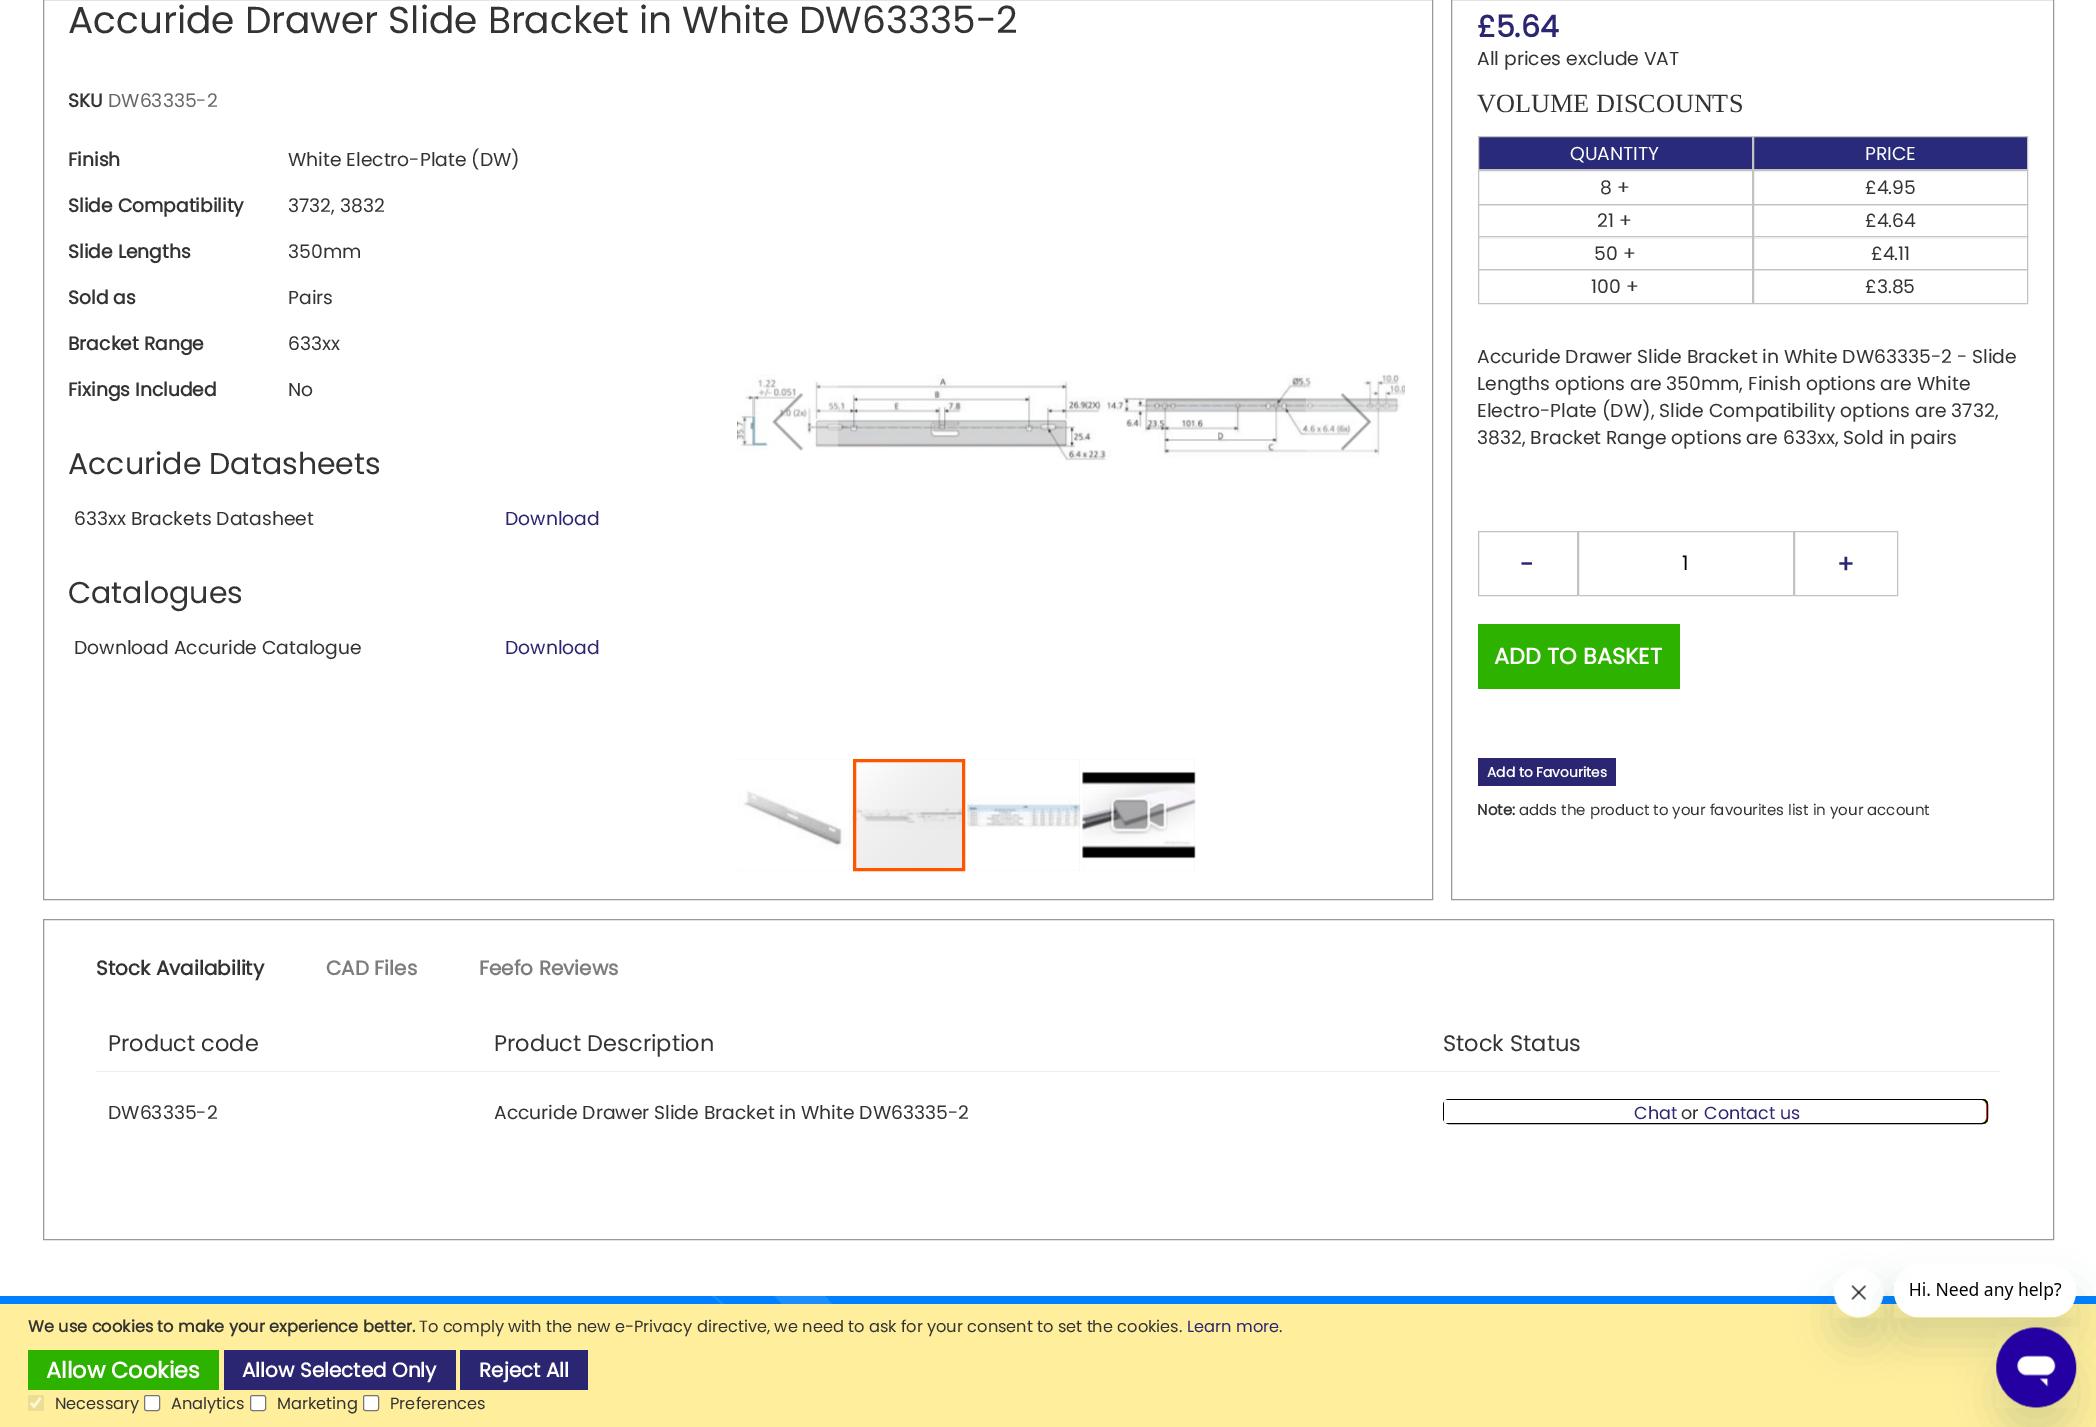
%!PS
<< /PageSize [2096 1427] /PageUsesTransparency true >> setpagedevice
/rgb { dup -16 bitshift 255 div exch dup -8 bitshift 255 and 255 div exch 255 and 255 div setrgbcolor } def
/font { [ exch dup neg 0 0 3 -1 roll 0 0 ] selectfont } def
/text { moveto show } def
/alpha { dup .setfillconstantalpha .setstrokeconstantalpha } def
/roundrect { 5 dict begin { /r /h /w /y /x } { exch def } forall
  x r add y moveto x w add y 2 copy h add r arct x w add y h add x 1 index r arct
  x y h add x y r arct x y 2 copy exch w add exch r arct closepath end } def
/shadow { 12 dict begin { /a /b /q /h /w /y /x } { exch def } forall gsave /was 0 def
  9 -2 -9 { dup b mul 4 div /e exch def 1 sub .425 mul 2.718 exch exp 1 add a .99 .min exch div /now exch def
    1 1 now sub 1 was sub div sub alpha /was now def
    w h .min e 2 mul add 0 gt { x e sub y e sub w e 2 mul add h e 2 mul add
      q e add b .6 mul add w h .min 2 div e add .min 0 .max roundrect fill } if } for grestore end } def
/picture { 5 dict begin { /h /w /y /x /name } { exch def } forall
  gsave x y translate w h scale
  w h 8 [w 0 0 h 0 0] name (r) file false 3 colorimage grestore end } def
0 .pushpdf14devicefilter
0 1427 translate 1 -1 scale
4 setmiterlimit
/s1 { /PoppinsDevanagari-Regular 37.5 font 16#333333 rgb } def
/s2 { /PoppinsDevanagari-Bold 18.75 font 16#333333 rgb } def
/s3 { /PoppinsDevanagari-Regular 18.75 font 16#666666 rgb } def
/s4 { /PoppinsDevanagari-Regular 18.75 font 16#333333 rgb } def
/s5 { /PoppinsDevanagari-Regular 30 font 16#333333 rgb } def
/s6 { /PoppinsDevanagari-Regular 18.75 font 16#2B2671 rgb } def
/s7 { /PoppinsDevanagari-Bold 30 font 16#2B2671 rgb } def
/s8 { /LiberationSerif-Regular 26.25 font 16#333333 rgb } def
/s9 { /PoppinsDevanagari-Regular 18.75 font 16#FFFFFF rgb } def
/s10 { /PoppinsDevanagari-Bold 25 font 16#2B2671 rgb } def
/s11 { /PoppinsDevanagari-Regular 20 font 16#000000 rgb } def
/s12 { /PoppinsDevanagari-Bold 22.5 font 16#FFFFFF rgb } def
/s13 { /PoppinsDevanagari-Bold 13.75 font 16#FFFFFF rgb } def
/s14 { /PoppinsDevanagari-Bold 15 font 16#333333 rgb } def
/s15 { /PoppinsDevanagari-Regular 15 font 16#333333 rgb } def
/s16 { /PoppinsDevanagari-Bold 20 font 16#333333 rgb } def
/s17 { /PoppinsDevanagari-Bold 20 font 16#7D7D7D rgb } def
/s18 { /PoppinsDevanagari-Regular 22.5 font 16#333333 rgb } def
/s19 { /PoppinsDevanagari-Regular 17.5 font 16#2B2671 rgb } def
/s20 { /PoppinsDevanagari-Regular 17.5 font 16#333333 rgb } def
/s21 { /PoppinsDevanagari-Bold 16.25 font 16#333333 rgb } def
/s22 { /PoppinsDevanagari-Regular 16.25 font 16#333333 rgb } def
/s23 { /PoppinsDevanagari-Regular 16.25 font 16#2B2671 rgb } def
/s24 { /PoppinsDevanagari-Bold 20 font 16#FFFFFF rgb } def
16#FFFFFF rgb
0 0 2096 1427 rectfill
16#999999 rgb
43.5 -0.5 1389 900 rectstroke
s1
(Accuride Drawer Slide Bracket in White DW63335-2) 68 33 text
s2
(SKU) 68 107 text
s3
(DW63335-2) 108 107 text
s2
(Finish) 68 166 text
s4
(White Electro-Plate \(DW\)) 288 166 text
s2
(Slide Compatibility) 68 212 text
s4
(3732, 3832) 288 212 text
s2
(Slide Lengths) 68 258 text
s4
(350mm) 288 258 text
s2
(Sold as) 68 304 text
s4
(Pairs) 288 304 text
s2
(Bracket Range) 68 350 text
s4
(633xx) 288 350 text
s2
(Fixings Included) 68 396 text
s4
(No) 288 396 text
s5
(Accuride Datasheets) 68 474 text
s4
(633xx Brackets Datasheet) 74 525 text
s6
(Download) 505 525 text
s5
(Catalogues) 68 603 text
s4
(Download Accuride Catalogue) 74 654 text
s6
(Download) 505 654 text
(pic1.raw) 737 374 668 88 picture
0.3 alpha
16#FFFFFF rgb
738 379 100 71 rectfill
1 alpha
(pic2.raw) 772 393 32 58 picture
0.3 alpha
1306 375 99 80 rectfill
1 alpha
(pic3.raw) 1341 393 31 58 picture
16#EBEBEB rgb
738 759 112 112 rectfill
(pic4.raw) 738 759 112 112 picture
(pic5.raw) 852 759 110 112 picture
16#FF5501 rgb
3 setlinewidth
854.5 760.5 109 109 rectstroke
16#EBEBEB rgb
968 759 112 112 rectfill
(pic6.raw) 967 759 114 112 picture
1083 759 112 112 rectfill
(pic7.raw) 1082 759 114 112 picture
(pic8.raw) 1109 797 59 38 picture
16#999999 rgb
1 setlinewidth
1451.5 -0.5 602 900 rectstroke
s7
(£5.64) 1477 37 text
s4
(All prices exclude VAT) 1477 65 text
s8
(VOLUME DISCOUNTS) 1477 112 text
16#292A7A rgb
1478.5 136.5 moveto 1752.5 136.5 lineto 1752.5 169.5 lineto 1478.5 169.5 lineto closepath gsave fill grestore
16#C2C2C2 rgb
stroke
s9
(QUANTITY) 1570 160 text
16#292A7A rgb
1753.5 136.5 moveto 2027.5 136.5 lineto 2027.5 169.5 lineto 1753.5 169.5 lineto closepath gsave fill grestore
16#C2C2C2 rgb
stroke
s9
(PRICE) 1865 160 text
16#C2C2C2 rgb
1478.5 170.5 274 34 rectstroke
s4
(8 +) 1600 194 text
16#C2C2C2 rgb
1753.5 170.5 274 34 rectstroke
s4
(£4.95) 1865 194 text
16#C2C2C2 rgb
1478.5 204.5 274 33 rectstroke
s4
(21 +) 1597 227 text
16#C2C2C2 rgb
1753.5 204.5 274 33 rectstroke
s4
(£4.64) 1865 227 text
16#FFFFFF rgb
1479 237 273 1 rectfill
16#C2C2C2 rgb
1478.5 236.5 274 33 rectstroke
s4
(50 +) 1594 260 text
16#FFFFFF rgb
1754 237 273 1 rectfill
16#C2C2C2 rgb
1753.5 236.5 274 33 rectstroke
s4
(£4.11) 1871 260 text
16#C2C2C2 rgb
1478.5 269.5 274 34 rectstroke
s4
(100 +) 1591 293 text
16#C2C2C2 rgb
1753.5 269.5 274 34 rectstroke
s4
(£3.85) 1865 293 text
(Accuride Drawer Slide Bracket in White DW63335-2 - Slide) 1477 363 text
(Lengths options are 350mm, Finish options are White) 1477 390 text
(Electro-Plate \(DW\), Slide Compatibility options are 3732,) 1477 417 text
(3832, Bracket Range options are 633xx, Sold in pairs) 1477 444 text
16#C2C2C2 rgb
1478.5 531.5 99 64 rectstroke
s10
(-) 1520 573 text
16#C2C2C2 rgb
1578.5 531.5 215 64 0.5 roundrect stroke
s11
(1) 1682 570 text
16#C2C2C2 rgb
1794.5 531.5 103 64 rectstroke
s10
(+) 1837 573 text
16#2DB200 rgb
1478 624 202 65 rectfill
s12
(ADD TO BASKET) 1494 664 text
16#2B2671 rgb
1478 758 138 28 rectfill
s13
(Add to Favourites) 1487 777 text
s14
(Note:) 1477 815 text
s15
(adds the product to your favourites list in your account) 1519 815 text
16#999999 rgb
43.5 919.5 2010 320 rectstroke
s16
(Stock Availability) 96 975 text
s17
(CAD Files) 326 975 text
(Feefo Reviews) 479 975 text
16#EEEEEE rgb
96 1071 1904 1 rectfill
s18
(Product code) 108 1051 text
(Product Description) 494 1051 text
(Stock Status) 1443 1051 text
s4
(DW63335-2) 108 1119 text
(Accuride Drawer Slide Bracket in White DW63335-2) 494 1119 text
gsave
1443 1099 545 25 6 roundrect clip newpath
16#2DB200 rgb
1980 1099 6 25 rectfill
16#FF3232 rgb
1986 1099 2 25 rectfill
grestore
16#000000 rgb
1443.5 1099.5 544 24 5.5 roundrect stroke
16#FFFFFF rgb
1446.5 1100 moveto 1447 1100 lineto 1447 1123 lineto 1446.5 1123 lineto 1445 1123 1444 1122 1444 1120.5 curveto 1444 1102.5 lineto 1444 1101 1445 1100 1446.5 1100 curveto closepath fill
1446 1100 moveto 1980 1100 lineto 1983.5 1100 1986 1102.5 1986 1106 curveto 1986 1117 lineto 1986 1120.5 1983.5 1123 1980 1123 curveto 1446 1123 lineto closepath fill
s19
(Chat) 1634 1119 text
s20
(or) 1681 1119 text
s19
(Contact us) 1704 1119 text
16#0080FF rgb
0 1296 2096 8 rectfill
(pic9.raw) 712 1296 120 8 picture
16#FFEE9C rgb
0 1304 2096 123 rectfill
s21
(We use cookies to make your experience better.) 28 1332 text
s22
(To comply with the new e-Privacy directive, we need to ask for your consent to set the cookies.) 419 1332 text
s23
(Learn more) 1187 1332 text
s22
(.) 1279 1332 text
16#2DB200 rgb
28 1350 191 40 rectfill
s12
(Allow Cookies) 46 1378 text
16#2B2671 rgb
224 1350 232 40 rectfill
s24
(Allow Selected Only) 242 1377 text
16#2B2671 rgb
460 1350 128 40 rectfill
s24
(Reject All) 479 1377 text
16#EBDC96 rgb
28 1395 16 16 2.5 roundrect fill
16#FFF7CE rgb
2.6 setlinewidth
31 1403 moveto 34 1406.5 lineto 40.5 1398 lineto stroke
s22
(Necessary) 55 1409 text
16#FFFFFF rgb
144.5 1395.5 15 15 2 roundrect gsave fill grestore
16#767676 rgb
1 setlinewidth
stroke
s22
(Analytics) 171 1409 text
16#FFFFFF rgb
250.5 1395.5 15 15 2 roundrect gsave fill grestore
16#767676 rgb
stroke
s22
(Marketing) 277 1409 text
16#FFFFFF rgb
363.5 1395.5 15 15 2 roundrect gsave fill grestore
16#767676 rgb
stroke
s22
(Preferences) 390 1409 text
gsave
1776 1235 moveto 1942 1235 lineto 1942 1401 lineto 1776 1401 lineto closepath 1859 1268 moveto 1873 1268 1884 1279 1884 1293 curveto 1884 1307 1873 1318 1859 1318 curveto 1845 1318 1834 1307 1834 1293 curveto 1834 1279 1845 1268 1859 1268 curveto closepath eoclip newpath
16#17494D rgb
1834 1293 50 50 25 19 0.15 shadow
grestore
(pic11.raw) 1833 1285 51 33 picture
gsave
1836 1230 moveto 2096 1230 lineto 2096 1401 lineto 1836 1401 lineto closepath 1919 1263 moveto 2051 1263 lineto 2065 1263 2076 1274 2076 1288 curveto 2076 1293 lineto 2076 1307 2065 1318 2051 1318 curveto 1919 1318 lineto 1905 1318 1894 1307 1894 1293 curveto 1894 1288 lineto 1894 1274 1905 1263 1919 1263 curveto closepath eoclip newpath
16#17494D rgb
1894 1288 182 55 25 19 0.15 shadow
grestore
(pic10.raw) 1894 1282 182 36 picture
16#17494D rgb
1996 1353 80 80 40 19 0.15 shadow
(pic12.raw) 1996 1327 81 81 picture
.poppdf14devicefilter showpage
